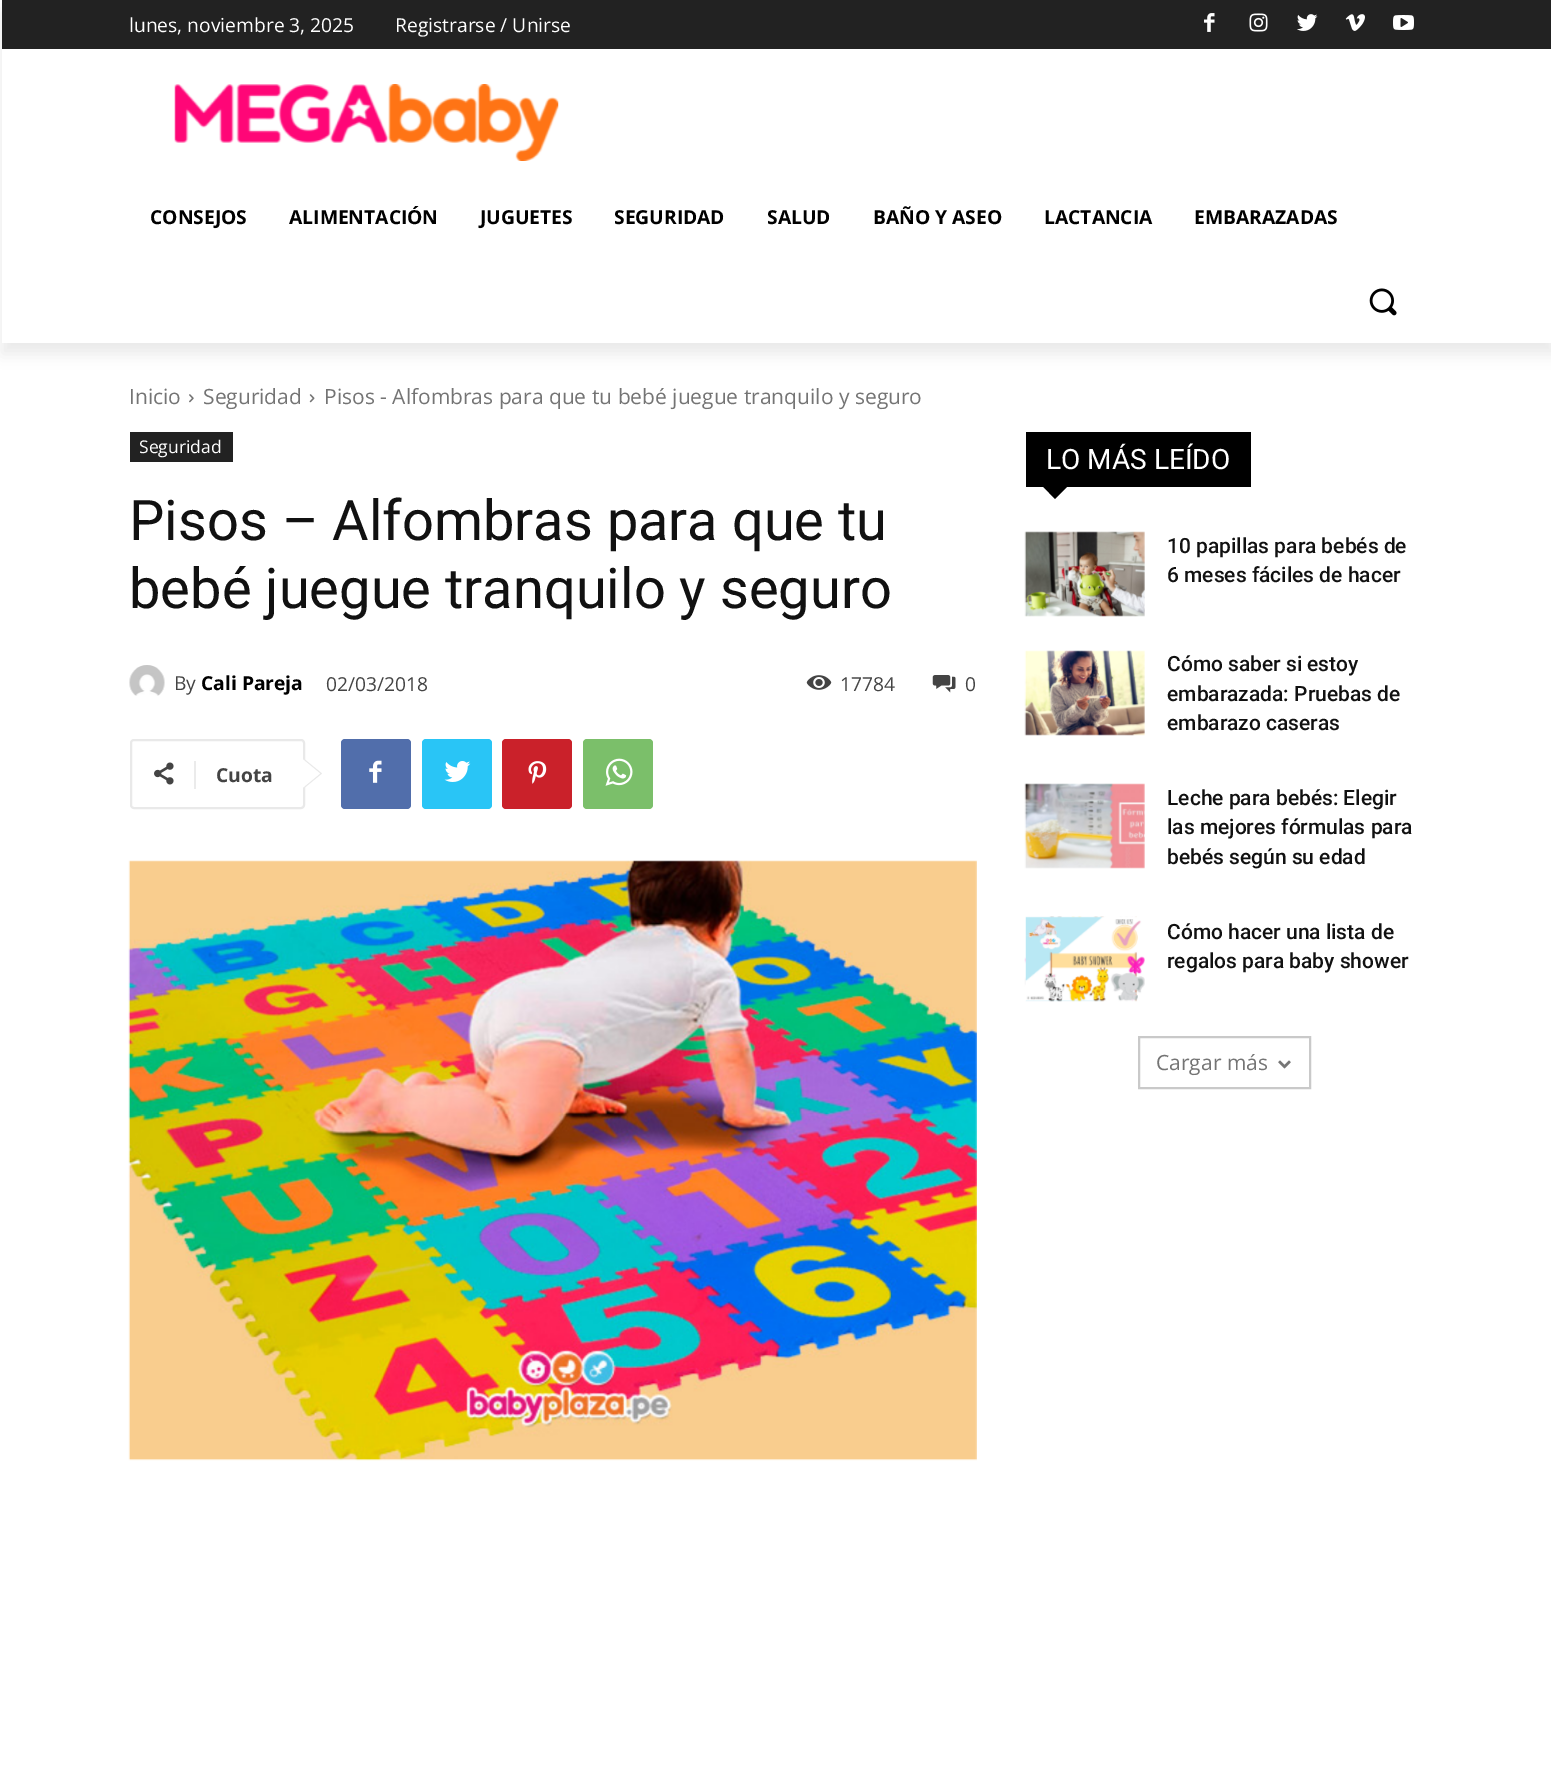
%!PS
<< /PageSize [1551 1790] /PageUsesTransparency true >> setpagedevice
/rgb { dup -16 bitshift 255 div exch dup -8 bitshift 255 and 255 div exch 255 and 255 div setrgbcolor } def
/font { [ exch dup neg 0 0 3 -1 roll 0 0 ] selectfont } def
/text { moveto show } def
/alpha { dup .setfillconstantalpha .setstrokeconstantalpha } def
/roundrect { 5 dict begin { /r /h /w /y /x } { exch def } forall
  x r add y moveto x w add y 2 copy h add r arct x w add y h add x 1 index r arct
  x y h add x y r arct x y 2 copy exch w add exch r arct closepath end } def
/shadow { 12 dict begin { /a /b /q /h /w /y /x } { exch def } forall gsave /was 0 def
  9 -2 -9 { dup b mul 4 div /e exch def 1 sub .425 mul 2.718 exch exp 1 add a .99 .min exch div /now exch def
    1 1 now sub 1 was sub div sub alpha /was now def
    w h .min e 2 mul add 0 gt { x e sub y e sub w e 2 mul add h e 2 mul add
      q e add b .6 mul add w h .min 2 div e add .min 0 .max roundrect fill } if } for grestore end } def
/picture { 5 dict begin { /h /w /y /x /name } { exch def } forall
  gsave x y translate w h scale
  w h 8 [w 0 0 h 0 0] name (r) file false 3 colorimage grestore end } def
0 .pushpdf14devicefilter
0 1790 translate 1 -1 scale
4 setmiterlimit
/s1 { /OpenSans-Regular 19.25 font 16#FFFFFF rgb } def
/s2 { /OpenSans-Bold 19.25 font 16#000000 rgb } def
/s3 { /OpenSans-Regular 21 font 16#747474 rgb } def
/s4 { /OpenSans-Regular 17.5 font 16#FFFFFF rgb } def
/s5 { /Roboto-Regular 56 font 16#111111 rgb } def
/s6 { /OpenSans-Regular 19.25 font 16#444444 rgb } def
/s7 { /OpenSans-Bold 19.25 font 16#444444 rgb } def
/s8 { /Roboto-Regular 28 font 16#FFFFFF rgb } def
/s9 { /Roboto-Medium 21 font 16#111111 rgb } def
16#FFFFFF rgb
0 0 1551 1790 rectfill
16#222222 rgb
2 0 1549 49 rectfill
(pic1.raw) 1204 13 11 19 picture
(pic2.raw) 1249 13 19 19 picture
(pic3.raw) 1297 14 21 17 picture
(pic4.raw) 1345 14 20 17 picture
(pic5.raw) 1393 15 21 15 picture
(pic6.raw) 174 84 385 77 picture
gsave
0 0 moveto 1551 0 lineto 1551 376 lineto 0 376 lineto closepath 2 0 moveto 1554 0 lineto 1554 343 lineto 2 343 lineto closepath eoclip newpath
16#000000 rgb
2 11 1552 343 0 7 0.08 shadow
grestore
s1
(lunes, noviembre 3, 2025) 129 32 text
(Registrarse / Unirse) 395 32 text
s2
(CONSEJOS) 150 224 text
(ALIMENTACIÓN) 289 224 text
(JUGUETES) 480 224 text
(SEGURIDAD) 614 224 text
(SALUD) 767 224 text
(BAÑO Y ASEO) 873 224 text
(LACTANCIA) 1044 224 text
(EMBARAZADAS) 1194 224 text
(pic7.raw) 1369 288 28 28 picture
s3
(Inicio) 129 404 text
(pic8.raw) 189 394 5 9 picture
(Seguridad) 203 404 text
(pic9.raw) 309 394 6 9 picture
(Pisos - Alfombras para que tu bebé juegue tranquilo y seguro) 324 404 text
16#222222 rgb
130 432 103 30 rectfill
s4
(Seguridad) 139 453 text
s5
(Pisos – Alfombras para que tu) 129 540 text
(bebé juegue tranquilo y seguro) 129 608 text
(pic10.raw) 129 665 36 31 picture
s6
(By) 174 690 text
s2
(Cali Pareja) 201 690 text
s6
(02/03/2018) 326 691 text
(pic11.raw) 806 675 26 15 picture
(17784) 840 691 text
(pic12.raw) 932 675 24 18 picture
(0) 965 691 text
16#E9E9E9 rgb
2 setlinewidth
131 740 173 68 3 roundrect stroke
303 789 moveto 303 758 lineto 322 773.5 lineto closepath fill
(pic13.raw) 154 762 20 23 picture
16#EBEBEB rgb
194 761 2 28 rectfill
s7
(Cuota) 216 782 text
16#FFFFFF rgb
303 787.5 moveto 303 759.5 lineto 320 773.5 lineto closepath fill
16#516EAB rgb
341 739 70 70 4 roundrect fill
(pic14.raw) 369 760 13 23 picture
16#29C5F6 rgb
422 739 70 70 4 roundrect fill
(pic15.raw) 444 761 27 21 picture
16#CA212A rgb
502 739 70 70 4 roundrect fill
(pic16.raw) 528 761 19 23 picture
16#7BBF6A rgb
583 739 70 70 4 roundrect fill
(pic17.raw) 605 758 28 28 picture
(pic18.raw) 128 860 849 601 picture
16#000000 rgb
1026 432 225 55 rectfill
s8
(LO MÁS LEÍDO) 1046 469 text
16#000000 rgb
1043 486.5 moveto 1067.5 486.5 lineto 1055 499 lineto closepath fill
(pic19.raw) 1024 531 121 86 picture
s9
(10 papillas para bebés de) 1167 553 text
(6 meses fáciles de hacer) 1167 582 text
(pic20.raw) 1024 650 121 86 picture
(Cómo saber si estoy) 1167 671 text
(embarazada: Pruebas de) 1167 701 text
(embarazo caseras) 1167 730 text
(pic21.raw) 1024 783 121 86 picture
(Leche para bebés: Elegir) 1167 805 text
(las mejores fórmulas para) 1167 834 text
(bebés según su edad) 1167 864 text
(pic22.raw) 1024 916 121 86 picture
(Cómo hacer una lista de) 1167 939 text
(regalos para baby shower) 1167 968 text
16#C9C9C9 rgb
1139 1037 171 51 rectstroke
s3
(Cargar más) 1156 1070 text
(pic23.raw) 1278 1060 13 9 picture
.poppdf14devicefilter showpage
